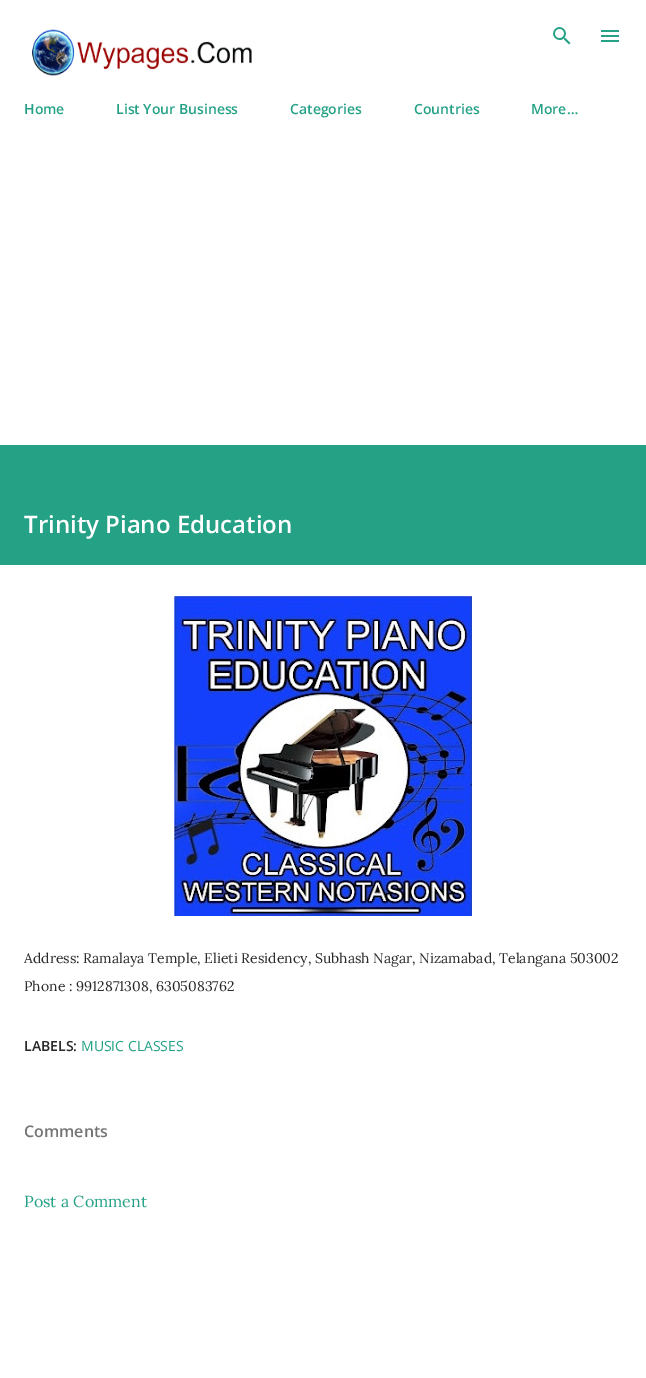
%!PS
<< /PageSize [646 1378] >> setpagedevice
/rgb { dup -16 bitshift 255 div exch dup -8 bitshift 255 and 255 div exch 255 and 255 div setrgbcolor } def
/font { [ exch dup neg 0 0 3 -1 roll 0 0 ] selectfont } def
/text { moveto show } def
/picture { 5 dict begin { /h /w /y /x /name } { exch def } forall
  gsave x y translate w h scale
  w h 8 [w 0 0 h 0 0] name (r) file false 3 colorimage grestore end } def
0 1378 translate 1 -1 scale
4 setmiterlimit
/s1 { /OpenSans-SemiBold 14 font 16#25A186 rgb } def
/s2 { /OpenSans-SemiBold 24 font 16#FFFFFF rgb } def
/s3 { /Lora-Regular 14 font 16#292929 rgb } def
/s4 { /OpenSans-SemiBold 14 font 16#292929 rgb } def
/s5 { /OpenSans-Regular 14 font 16#25A186 rgb } def
/s6 { /OpenSans-SemiBold 16 font 16#757575 rgb } def
/s7 { /Lora-Regular 16 font 16#25A186 rgb } def
16#FFFFFF rgb
0 0 646 1378 rectfill
(pic1.raw) 32 29 220 47 picture
(pic2.raw) 553 27 18 18 picture
(pic3.raw) 601 30 18 12 picture
s1
(Home) 24 114 text
(List Your Business) 116 114 text
(Categories) 290 114 text
(Countries) 414 114 text
(More…) 531 114 text
0 445 646 120 rectfill
s2
(Trinity Piano Education) 24 533 text
(pic4.raw) 174 596 298 320 picture
s3
(Address: Ramalaya Temple, Elieti Residency, Subhash Nagar, Nizamabad, Telangana 503002) 24 963 text
(Phone : 9912871308, 6305083762) 24 991 text
s4
(LABELS:) 24 1051 text
s5
(MUSIC CLASSES) 81 1051 text
s6
(Comments) 24 1137 text
s7
(Post a Comment) 24 1207 text
showpage
